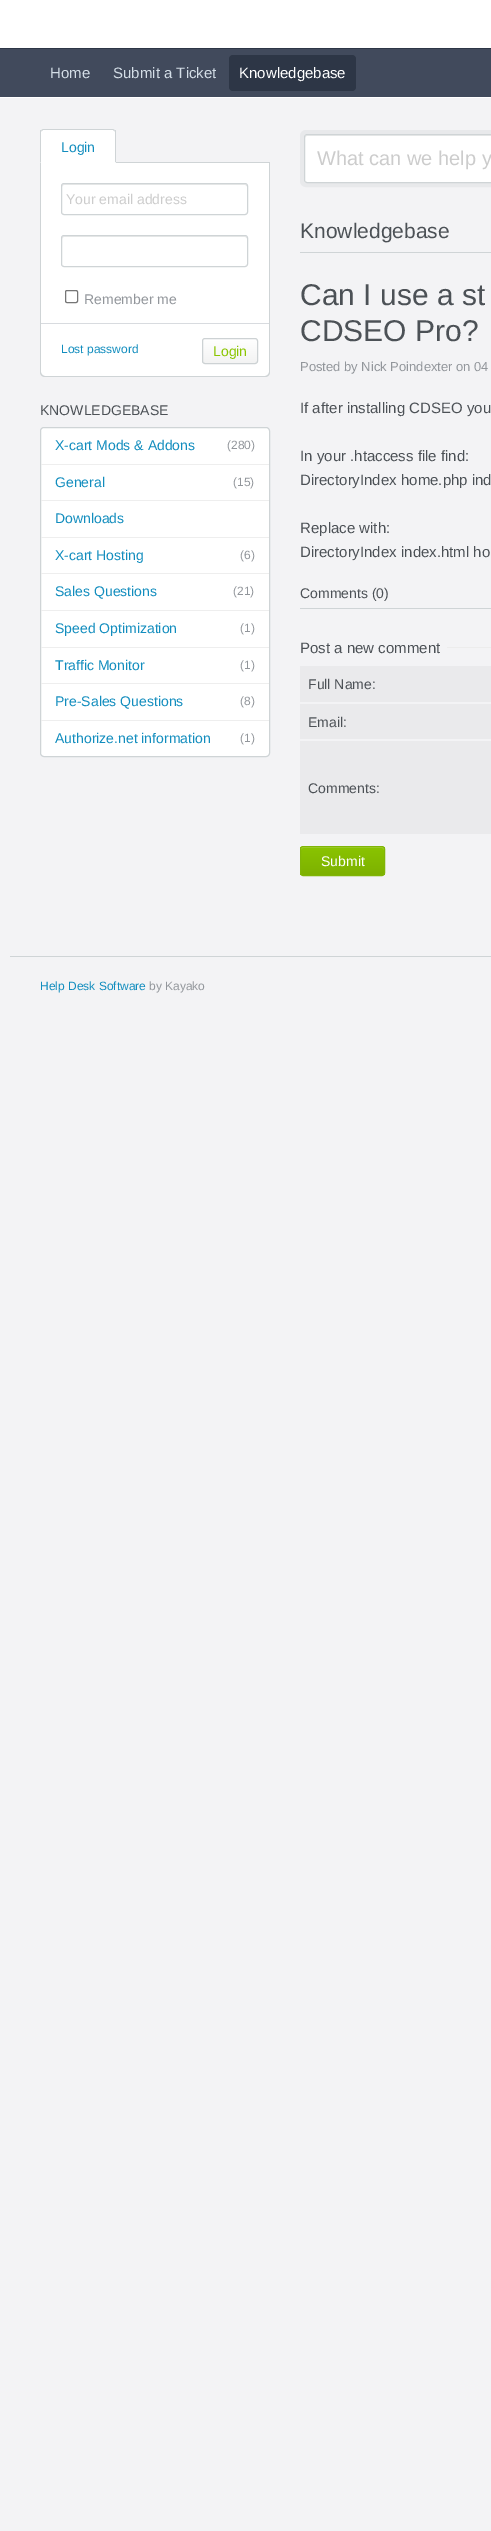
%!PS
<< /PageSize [491 2531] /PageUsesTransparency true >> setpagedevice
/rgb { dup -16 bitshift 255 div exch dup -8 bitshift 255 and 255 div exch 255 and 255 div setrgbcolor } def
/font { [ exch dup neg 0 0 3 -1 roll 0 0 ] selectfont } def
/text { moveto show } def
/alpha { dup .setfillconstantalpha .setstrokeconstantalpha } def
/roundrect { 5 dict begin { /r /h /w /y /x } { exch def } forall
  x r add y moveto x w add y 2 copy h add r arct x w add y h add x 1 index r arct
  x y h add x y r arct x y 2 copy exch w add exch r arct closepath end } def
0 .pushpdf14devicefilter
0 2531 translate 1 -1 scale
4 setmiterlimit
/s1 { /LiberationSans-Regular 15 font 16#D4DEE7 rgb } def
/s2 { /LiberationSans-Regular 15 font 16#FFFFFF rgb } def
/s3 { /LiberationSans-Regular 14 font 16#128DBE rgb } def
/s4 { /LiberationSans-Regular 14 font 16#CCCCCC rgb } def
/s5 { /LiberationSans-Regular 14 font 16#92969B rgb } def
/s6 { /LiberationSans-Regular 12 font 16#128DBE rgb } def
/s7 { /LiberationSans-Regular 14 font 16#8AC500 rgb } def
/s8 { /LiberationSans-Regular 14 font 16#4C5156 rgb } def
/s9 { /LiberationSans-Regular 12 font 16#92969B rgb } def
/s10 { /LiberationSans-Regular 20 font 16#CCCCCC rgb } def
/s11 { /LiberationSans-Regular 21 font 16#4C5156 rgb } def
/s12 { /LiberationSans-Regular 30 font 16#4C5156 rgb } def
/s13 { /LiberationSans-Regular 13 font 16#92969B rgb } def
/s14 { /LiberationSans-Regular 15 font 16#4C5156 rgb } def
/s15 { /LiberationSans-Regular 14 font 16#FFFFFF rgb } def
16#F3F3F5 rgb
0 0 491 2531 rectfill
16#FFFFFF rgb
0 0 491 48 rectfill
16#414A5C rgb
0 49 491 48 rectfill
16#2D3646 rgb
0 48 491 1 rectfill
16#FFFFFF rgb
0 97 491 1 rectfill
s1
(Home) 50 78 text
(Submit a Ticket) 113 78 text
16#2D3646 rgb
229 55 127 36 4 roundrect fill
s2
(Knowledgebase) 239 78 text
16#CFD4D6 rgb
116 162 154 1 rectfill
16#FFFFFF rgb
43 129 moveto 113 129 lineto 114.5 129 116 130.5 116 132 curveto 116 163 lineto 40 163 lineto 40 132 lineto 40 130.5 41.5 129 43 129 curveto closepath fill
16#CFD4D6 rgb
43 129 moveto 41 130 lineto 42 131 lineto 43 130 lineto 113 130 lineto 114 131 lineto 115 130 lineto 113 129 lineto closepath fill
116 163 moveto 116 132 lineto 116 131 116 130 115 130 curveto 114.5 130.5 lineto 115 132 lineto 115 162 lineto closepath fill
16#FFFFFF rgb
116 163 moveto 115 162 lineto 41 162 lineto 40 163 lineto closepath fill
16#CFD4D6 rgb
40 163 moveto 41 162 lineto 41 132 lineto 41.5 130.5 lineto 41 130 lineto 40 130 40 131 40 132 curveto closepath fill
s3
(Login) 61 152 text
16#FFFFFF rgb
41 163 moveto 269 163 lineto 269 372 lineto 269 374 267 376 265 376 curveto 45 376 lineto 43 376 41 374 41 372 curveto closepath fill
16#CFD4D6 rgb
40 163 moveto 270 163 lineto 270 372 lineto 270 375 268 377 265 377 curveto 45 377 lineto 42 377 40 375 40 372 curveto closepath 41 163 moveto 269 163 lineto 269 372 lineto 269 374 267 376 265 376 curveto 45 376 lineto 43 376 41 374 41 372 curveto closepath eofill
16#ECECEC rgb
64 185 moveto 245 185 lineto 246 185 247 186 247 187 curveto 247 186 lineto 247 185 246 184 245 184 curveto 64 184 lineto 63 184 62 185 62 186 curveto 62 187 lineto 62 186 63 185 64 185 curveto closepath fill
16#CFD4D6 rgb
61.5 183.5 186 31 2.5 roundrect stroke
s4
(Your email address) 66 204 text
16#ECECEC rgb
64 237 moveto 245 237 lineto 246 237 247 238 247 239 curveto 247 238 lineto 247 237 246 236 245 236 curveto 64 236 lineto 63 236 62 237 62 238 curveto 62 239 lineto 62 238 63 237 64 237 curveto closepath fill
16#CFD4D6 rgb
61.5 235.5 186 31 2.5 roundrect stroke
16#767676 rgb
65.5 290.5 12 12 1.5 roundrect stroke
s5
(Remember me) 84 304 text
16#D8DBDF rgb
41 323 228 1 rectfill
s6
(Lost password) 61 353 text
gsave
202 338 56 26 3 roundrect clip newpath
gsave 202 339 moveto 258 339 lineto 258 363 lineto 202 363 lineto closepath clip newpath
<< /ShadingType 2 /ColorSpace /DeviceRGB /Coords [203 339 203 363] /Extend [true true] /Function << /FunctionType 2 /Domain [0 1] /C0 [1 1 1] /C1 [0.953 0.953 0.953] /N 1 >> >> shfill grestore
grestore
16#CDD2D4 rgb
202.5 338.5 55 25 2.5 roundrect stroke
s7
(Login) 213 356 text
s8
(KNOWLEDGEBASE) 40 415 text
16#FFFFFF rgb
40.5 427.5 229 329 3.5 roundrect gsave fill grestore
16#CFD4D6 rgb
stroke
16#EEEEEE rgb
41 464 228 1 rectfill
s3
(X-cart Mods & Addons) 55 450 text
s9
(\(280\)) 227 449 text
16#EEEEEE rgb
41 500 228 1 rectfill
s3
(General) 55 487 text
s9
(\(15\)) 233 486 text
16#EEEEEE rgb
41 537 228 1 rectfill
s3
(Downloads) 55 523 text
16#EEEEEE rgb
41 573 228 1 rectfill
s3
(X-cart Hosting) 55 560 text
s9
(\(6\)) 240 559 text
16#EEEEEE rgb
41 610 228 1 rectfill
s3
(Sales Questions) 55 596 text
s9
(\(21\)) 233 595 text
16#EEEEEE rgb
41 647 228 1 rectfill
s3
(Speed Optimization) 55 633 text
s9
(\(1\)) 240 632 text
16#EEEEEE rgb
41 683 228 1 rectfill
s3
(Traffic Monitor) 55 670 text
s9
(\(1\)) 240 669 text
16#EEEEEE rgb
41 720 228 1 rectfill
s3
(Pre-Sales Questions) 55 706 text
s9
(\(8\)) 240 705 text
s3
(Authorize.net information) 55 743 text
s9
(\(1\)) 240 742 text
16#FFFFFF rgb
302 132 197 53 4 roundrect gsave fill grestore
16#E8E9EB rgb
4 setlinewidth
stroke
16#ECECEC rgb
307 136 moveto 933 136 lineto 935 138 lineto 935 137 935 135 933 135 curveto 307 135 lineto 305 135 305 137 305 138 curveto 305 137 306 136 307 136 curveto closepath fill
16#CFD4D6 rgb
1 setlinewidth
304.5 134.5 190 48 2.5 roundrect stroke
s10
(What can we help y) 317 165 text
16#CFD4D6 rgb
300 252 191 1 rectfill
s11
(Knowledgebase) 300 238 text
s12
(Can I use a st) 300 305 text
(CDSEO Pro?) 300 341 text
s13
(Posted by Nick Poindexter on 04) 300 371 text
s14
(If after installing CDSEO you) 300 413 text
(In your .htaccess file find:) 300 461 text
(DirectoryIndex home.php ind) 300 485 text
(Replace with:) 300 533 text
(DirectoryIndex index.html ho) 300 557 text
16#CFD4D6 rgb
300 608 191 1 rectfill
s8
(Comments \(0\)) 300 598 text
s14
(Post a new comment) 300 653 text
16#ECECEC rgb
447 647 44 1 rectfill
16#EAEAEC rgb
300 666 191 36 rectfill
s8
(Full Name:) 308 689 text
16#EAEAEC rgb
300 704 191 35 rectfill
s8
(Email:) 308 727 text
16#EAEAEC rgb
300 741 191 93 rectfill
s8
(Comments:) 308 793 text
gsave
300 846 85 30 3 roundrect clip newpath
gsave 300 847 moveto 385 847 lineto 385 875 lineto 300 875 lineto closepath clip newpath
<< /ShadingType 2 /ColorSpace /DeviceRGB /Coords [301 847 301 875] /Extend [true true] /Function << /FunctionType 2 /Domain [0 1] /C0 [0.541 0.769 0] /C1 [0.49 0.694 0] /N 1 >> >> shfill grestore
grestore
0.2 alpha
16#FFFFFF rgb
303 848 moveto 382 848 lineto 383 848 384 849 384 850 curveto 384 843 372 847 369 847 curveto 316 847 lineto 313 847 301 843 301 850 curveto 301 849 302 848 303 848 curveto closepath fill
1 alpha
16#80B506 rgb
300.5 846.5 84 29 2.5 roundrect stroke
s15
(Submit) 321 866 text
16#CFD4D6 rgb
10 956 481 1 rectfill
s6
(Help Desk Software) 40 990 text
s9
(by Kayako) 149 990 text
.poppdf14devicefilter showpage
